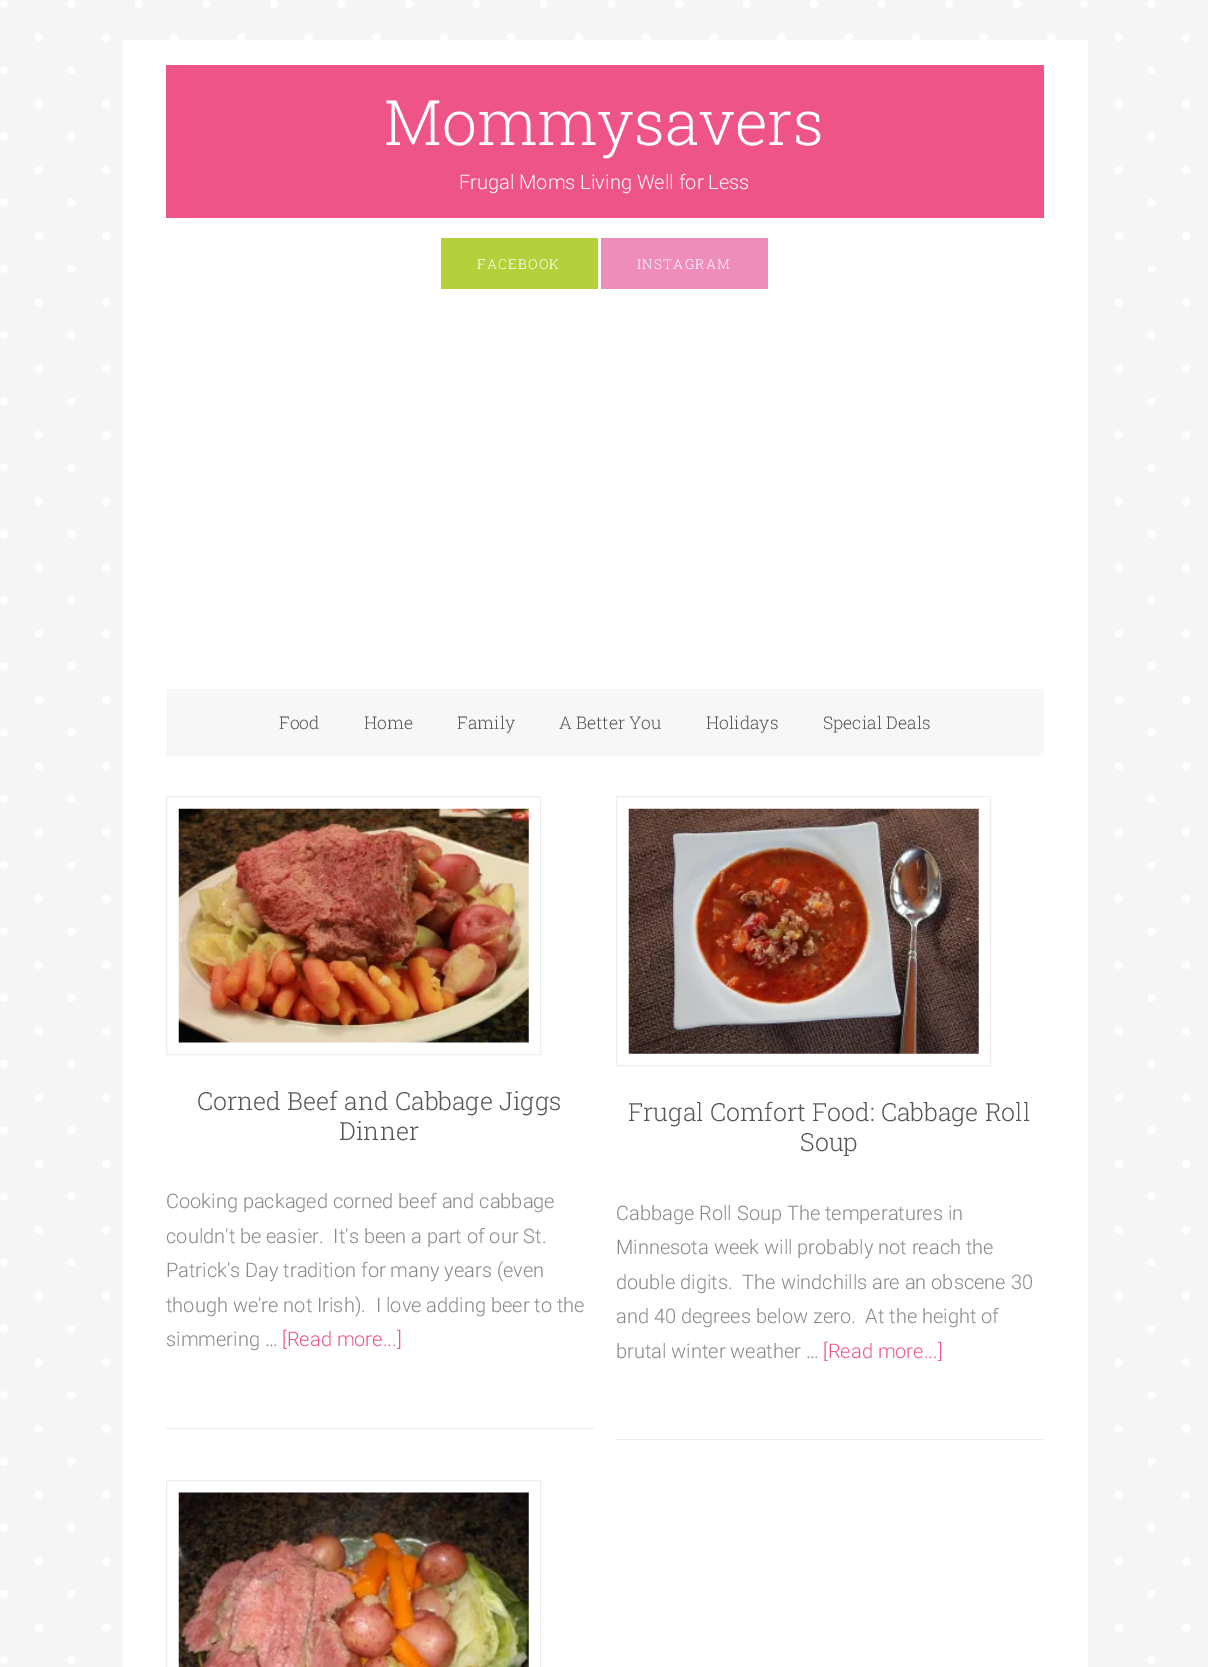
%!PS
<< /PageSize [1208 1667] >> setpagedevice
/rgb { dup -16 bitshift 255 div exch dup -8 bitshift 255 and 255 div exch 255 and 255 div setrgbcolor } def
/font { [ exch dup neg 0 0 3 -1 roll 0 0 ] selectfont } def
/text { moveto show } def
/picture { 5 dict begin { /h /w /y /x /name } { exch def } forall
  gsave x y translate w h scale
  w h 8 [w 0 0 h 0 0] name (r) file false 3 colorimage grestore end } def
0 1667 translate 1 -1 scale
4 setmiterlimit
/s1 { /RobotoSlab-Light 62.5 font 16#FFFFFF rgb } def
/s2 { /Roboto-Light 20 font 16#FFFFFF rgb } def
/s3 { /RobotoSlab-Light 17.5 font 16#555555 rgb } def
/s4 { /RobotoSlab-Light 25 font 16#555555 rgb } def
/s5 { /Roboto-Light 20 font 16#888888 rgb } def
/s6 { /Roboto-Light 20 font 16#EF5488 rgb } def
16#F5F5F5 rgb
0 0 1208 1667 rectfill
(pic1.raw) 0 0 1190 1664 picture
16#FFFFFF rgb
123 40 965 1627 rectfill
16#EF5488 rgb
166 65 878 153 rectfill
s1
(Mommysavers) 384 145 text
s2
(Frugal Moms Living Well for Less) 459 189 text
16#B4D13B rgb
441 238 157 51 rectfill
/RobotoSlab-Light 13.75 font
16#FFFFFF rgb
477 269 moveto 1.25 0 (FACEBOOK) ashow
16#EE8DBA rgb
601 238 167 51 rectfill
16#FFFFFF rgb
637 269 moveto 1.25 0 (INSTAGRAM) ashow
16#F7F7F7 rgb
166 689 878 67 rectfill
s3
(Food) 279 729 text
(Home) 364 729 text
(Family) 457 729 text
(A Better You) 559 729 text
(Holidays) 706 729 text
(Special Deals) 823 729 text
16#EEEEEE rgb
166 1428 428 1 rectfill
166.5 796.5 374 258 rectstroke
(pic2.raw) 178 808 351 235 picture
s4
(Corned Beef and Cabbage Jiggs) 197 1110 text
(Dinner) 339 1140 text
s5
(Cooking packaged corned beef and cabbage) 166 1208 text
(couldn't be easier.  It's been a part of our St.) 166 1243 text
(Patrick's Day tradition for many years \(even) 166 1277 text
(though we're not Irish\).  I love adding beer to the) 166 1312 text
(simmering …) 166 1346 text
s6
([Read more...]) 282 1346 text
16#EEEEEE rgb
616 1439 428 1 rectfill
616.5 796.5 374 269 rectstroke
(pic3.raw) 628 808 351 246 picture
s4
(Frugal Comfort Food: Cabbage Roll) 628 1121 text
(Soup) 800 1151 text
s5
(Cabbage Roll Soup The temperatures in) 616 1220 text
(Minnesota week will probably not reach the) 616 1254 text
(double digits.  The windchills are an obscene 30) 616 1289 text
(and 40 degrees below zero.  At the height of) 616 1323 text
(brutal winter weather …) 616 1358 text
s6
([Read more...]) 823 1358 text
16#EEEEEE rgb
166.5 1480.5 374 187 rectstroke
(pic4.raw) 178 1492 351 175 picture
showpage
